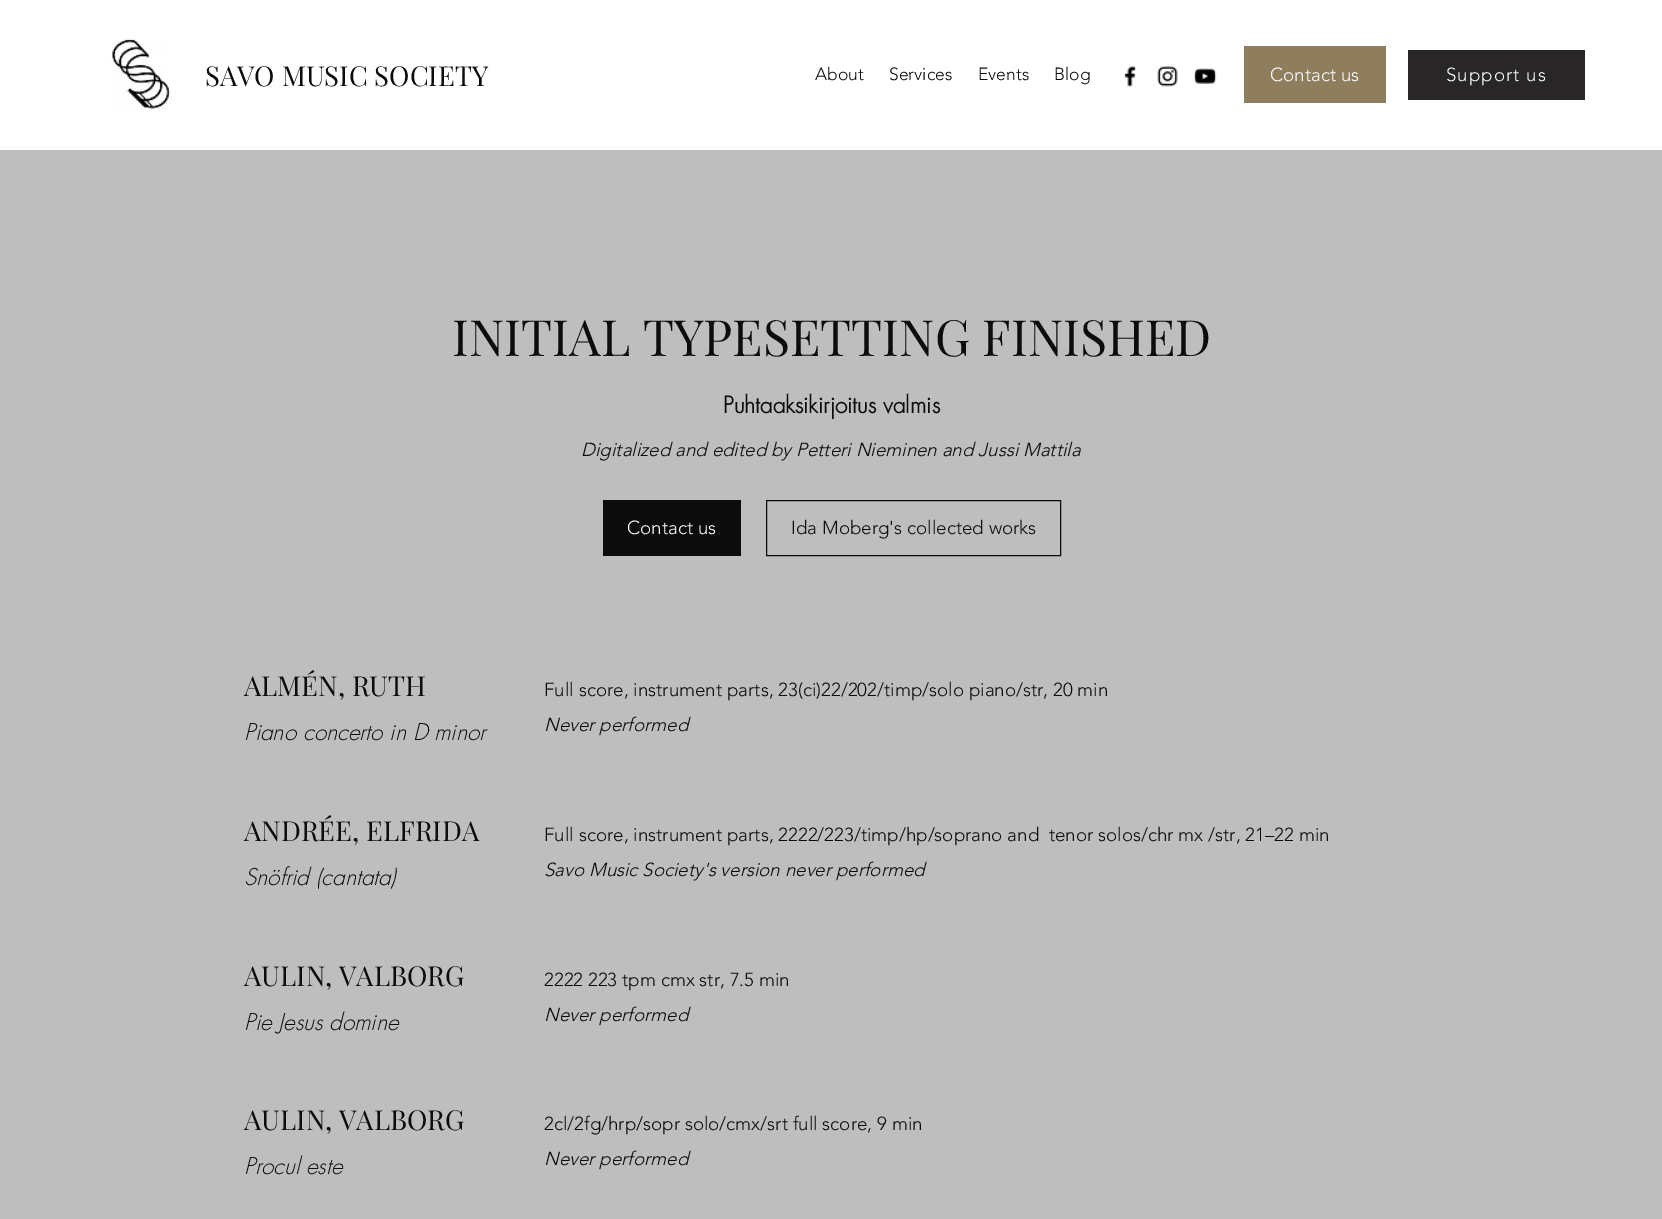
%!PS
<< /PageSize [1662 1219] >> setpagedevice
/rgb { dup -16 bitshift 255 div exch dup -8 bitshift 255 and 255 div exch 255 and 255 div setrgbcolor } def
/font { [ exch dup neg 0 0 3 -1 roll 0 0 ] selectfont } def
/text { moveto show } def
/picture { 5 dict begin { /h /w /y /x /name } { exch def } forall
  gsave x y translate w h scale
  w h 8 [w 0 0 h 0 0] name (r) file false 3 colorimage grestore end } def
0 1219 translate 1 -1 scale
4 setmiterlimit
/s1 { /PlayfairDisplay-Regular 27.5 font 16#0D0C0C rgb } def
/s2 { /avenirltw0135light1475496-Light 17.5 font 16#0D0C0C rgb } def
/s3 { /avenirltw0135light1475496-Light 18.75 font 16#FFFFFF rgb } def
/s4 { /PlayfairDisplay-Regular 50 font 16#0D0C0C rgb } def
/s5 { /futura-Bold 22.5 font 16#0D0C0C rgb } def
/s6 { /avenirltw0135light1475496-LightItalic 18.75 font 16#0D0C0C rgb } def
/s7 { /avenirltw0135light1475496-Light 18.75 font 16#0D0C0C rgb } def
/s8 { /futura-LightItalic 22.5 font 16#0D0C0C rgb } def
16#FFFFFF rgb
0 0 1662 1219 rectfill
(pic1.raw) 110 38 61 72 picture
s1
(SAVO MUSIC SOCIETY) 205 86 text
s2
(About) 815 80 text
(Services) 889 80 text
(Events) 978 80 text
(Blog) 1054 80 text
(pic2.raw) 1124 66 12 21 picture
(pic3.raw) 1157 66 21 21 picture
(pic4.raw) 1194 68 23 16 picture
16#8F7E5E rgb
1244 46 142 57 rectfill
s3
(Contact us) 1270 81 text
16#282626 rgb
1408 50 177 50 rectfill
16#FFFFFF rgb
1446 81 moveto 1 0 (Support us) ashow
16#BEBEBE rgb
0 150 1662 1069 rectfill
s4
(INITIAL TYPESETTING FINISHED) 452 356 text
s5
(Puhtaaksikirjoitus valmis) 723 413 text
s6
(Digitalized and edited by Petteri Nieminen and Jussi Mattila) 581 456 text
603 500 138 56 rectfill
s3
(Contact us) 627 534 text
16#0D0C0C rgb
766.5 500.5 294 55 rectstroke
(Ida Moberg's collected works) 791 534 text
s1
(ALMÉN, RUTH) 244 696 text
s7
(Full score, instrument parts, 23\(ci\)22/202/timp/solo piano/str, 20 min) 544 696 text
s6
(Never performed) 544 731 text
s8
(Piano concerto in D minor) 244 740 text
s1
(ANDRÉE, ELFRIDA) 244 841 text
s7
(Full score, instrument parts, 2222/223/timp/hp/soprano and  tenor solos/chr mx /str, 21–22 min) 544 841 text
s6
(Savo Music Society's version never performed) 544 876 text
s8
(Snöfrid \(cantata\)) 244 885 text
s1
(AULIN, VALBORG) 244 986 text
s7
(2222 223 tpm cmx str, 7.5 min) 544 986 text
s6
(Never performed) 544 1021 text
s8
(Pie Jesus domine) 244 1030 text
s1
(AULIN, VALBORG) 244 1130 text
s7
(2cl/2fg/hrp/sopr solo/cmx/srt full score, 9 min) 544 1130 text
s6
(Never performed) 544 1165 text
s8
(Procul este) 244 1174 text
showpage
